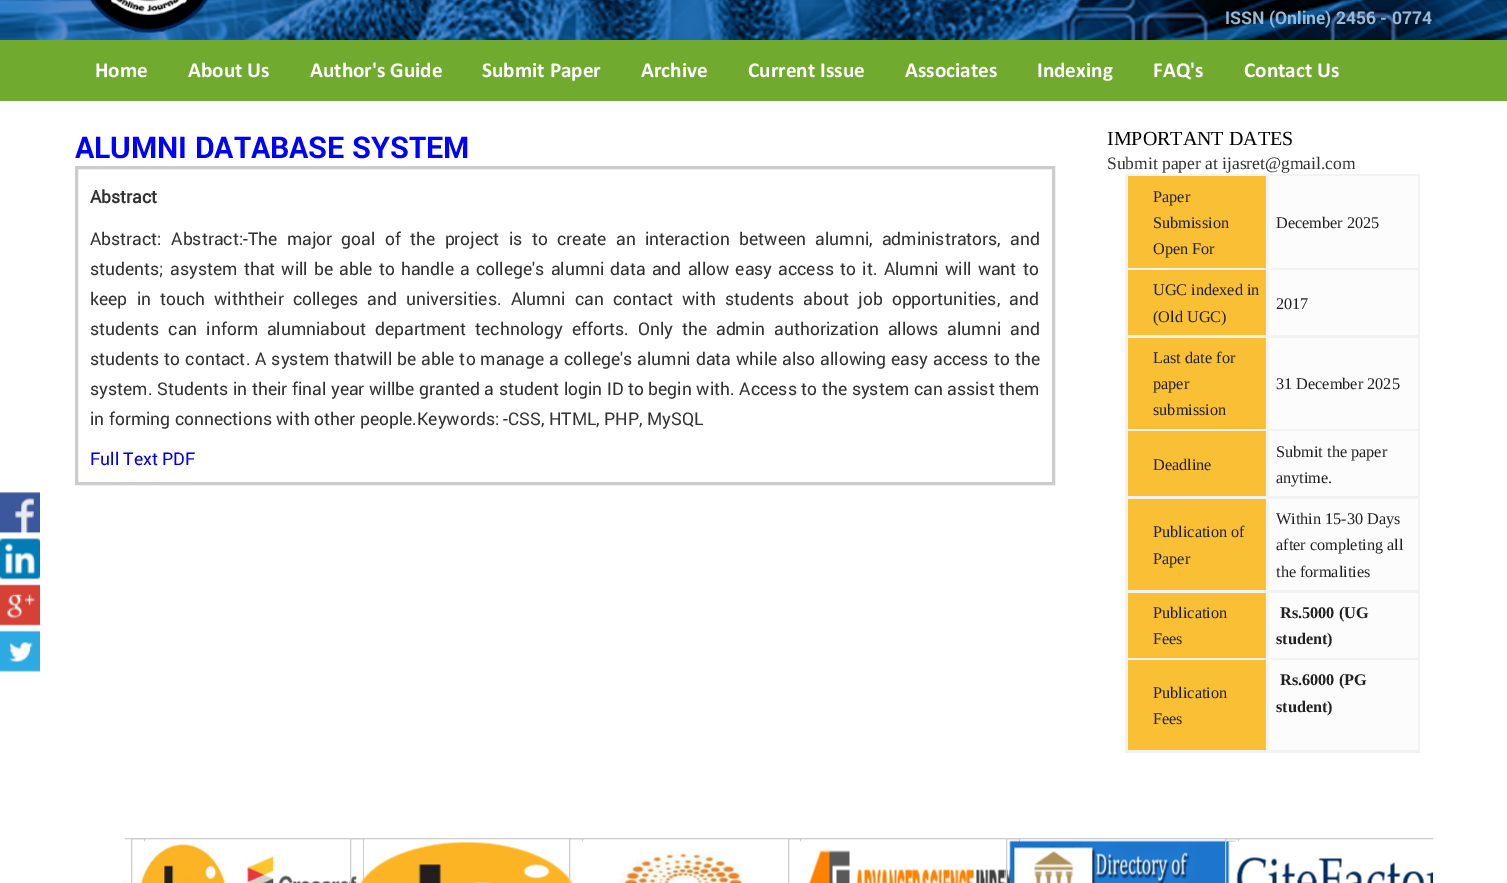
%!PS
<< /PageSize [1507 883] >> setpagedevice
/rgb { dup -16 bitshift 255 div exch dup -8 bitshift 255 and 255 div exch 255 and 255 div setrgbcolor } def
/font { [ exch dup neg 0 0 3 -1 roll 0 0 ] selectfont } def
/text { moveto show } def
/picture { 5 dict begin { /h /w /y /x /name } { exch def } forall
  gsave x y translate w h scale
  w h 8 [w 0 0 h 0 0] name (r) file false 3 colorimage grestore end } def
0 883 translate 1 -1 scale
4 setmiterlimit
/s1 { /Roboto-Bold 17.5 font 16#95BAD5 rgb } def
/s2 { /Calibri-Bold 21.25 font 16#FFFFFF rgb } def
/s3 { /Roboto-Bold 30 font 16#0000FF rgb } def
/s4 { /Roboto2-Bold 17.5 font 16#333333 rgb } def
/s5 { /Roboto-Regular 17.5 font 16#333333 rgb } def
/s6 { /Roboto-Regular 17.5 font 16#0000EE rgb } def
/s7 { /LiberationSerif-Regular 20 font 16#000000 rgb } def
/s8 { /LiberationSerif-Regular 17.5 font 16#333333 rgb } def
/s9 { /LiberationSerif-Regular 16.25 font 16#222222 rgb } def
/s10 { /LiberationSerif-Bold 16.25 font 16#222222 rgb } def
16#FFFFFF rgb
0 0 1507 883 rectfill
(pic1.raw) 0 0 1507 40 picture
(pic2.raw) 90 0 118 33 picture
s1
(ISSN \(Online\) 2456 - 0774) 1225 24 text
16#70AA2F rgb
0 40 1507 61 rectfill
s2
(Home) 95 77 text
(About Us) 188 77 text
(Author's Guide) 310 77 text
(Submit Paper) 482 77 text
(Archive) 641 77 text
(Current Issue) 748 77 text
(Associates) 905 77 text
(Indexing) 1037 77 text
(FAQ's) 1153 77 text
(Contact Us) 1244 77 text
(pic3.raw) 0 492 40 42 picture
(pic4.raw) 0 538 40 42 picture
(pic5.raw) 0 584 40 42 picture
(pic6.raw) 0 630 40 42 picture
s3
(ALUMNI DATABASE SYSTEM) 75 158 text
16#CCCCCC rgb
3 setlinewidth
76.5 167.5 977 316 rectstroke
s4
(Abstract) 90 203 text
/Roboto-Regular 17.5 font
90 245 moveto 5 0 32 (Abstract: Abstract:-The major goal of the project is to create an interaction between alumni, administrators, and) widthshow
90 275 moveto 1.8 0 32 (students; asystem that will be able to handle a college's alumni data and allow easy access to it. Alumni will want to) widthshow
90 305 moveto 4.75 0 32 (keep in touch withtheir colleges and universities. Alumni can contact with students about job opportunities, and) widthshow
90 335 moveto 4.6 0 32 (students can inform alumniabout department technology efforts. Only the admin authorization allows alumni and) widthshow
90 365 moveto 0.6 0 32 (students to contact. A system thatwill be able to manage a college's alumni data while also allowing easy access to the) widthshow
90 395 moveto 0.2 0 32 (system. Students in their final year willbe granted a student login ID to begin with. Access to the system can assist them) widthshow
(in forming connections with other people.Keywords: -CSS, HTML, PHP, MySQL) 90 425 text
s6
(Full Text PDF) 90 465 text
s7
(IMPORTANT DATES) 1107 145 text
s8
(Submit paper at ijasret@gmail.com) 1107 169 text
16#F2F2F2 rgb
1125 174 295 579 rectfill
16#F9C035 rgb
1128 176 138 92 rectfill
s9
(Paper) 1153 202 text
(Submission) 1153 228 text
(Open For) 1153 254 text
16#FCFCFC rgb
1269 176 149 92 rectfill
s9
(December 2025) 1276 228 text
16#F9C035 rgb
1128 270 138 65 rectfill
s9
(UGC indexed in) 1153 295 text
(\(Old UGC\)) 1153 322 text
16#FCFCFC rgb
1269 270 149 65 rectfill
s9
(2017) 1276 309 text
16#F9C035 rgb
1128 338 138 91 rectfill
s9
(Last date for) 1153 363 text
(paper) 1153 389 text
(submission) 1153 415 text
16#FCFCFC rgb
1269 338 149 91 rectfill
s9
(31 December 2025) 1276 389 text
16#F9C035 rgb
1128 431 138 65 rectfill
s9
(Deadline) 1153 470 text
16#FCFCFC rgb
1269 431 149 65 rectfill
s9
(Submit the paper) 1276 457 text
(anytime.) 1276 483 text
16#F9C035 rgb
1128 499 138 91 rectfill
s9
(Publication of) 1153 537 text
(Paper) 1153 564 text
16#FCFCFC rgb
1269 499 149 91 rectfill
s9
(Within 15-30 Days) 1276 524 text
(after completing all) 1276 550 text
(the formalities) 1276 577 text
16#F9C035 rgb
1128 593 138 65 rectfill
s9
(Publication) 1153 618 text
(Fees) 1153 644 text
16#FCFCFC rgb
1269 593 149 65 rectfill
s10
(Rs.5000 \(UG) 1280 618 text
(student\)) 1276 644 text
16#F9C035 rgb
1128 660 138 90 rectfill
s9
(Publication) 1153 698 text
(Fees) 1153 724 text
16#FCFCFC rgb
1269 660 149 90 rectfill
s10
(Rs.6000 \(PG) 1280 685 text
(student\)) 1276 712 text
gsave
125 838 1308 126 rectclip
16#CCCCCC rgb
1 setlinewidth
-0.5 838.5 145 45 rectstroke
grestore
16#FCE4E3 rgb
125 882 1 1 rectfill
16#CCCCCC rgb
1 setlinewidth
131.5 838.5 232 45 rectstroke
(pic7.raw) 137 840 220 43 picture
350.5 838.5 232 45 rectstroke
(pic8.raw) 360 841 213 42 picture
569.5 838.5 231 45 rectstroke
(pic9.raw) 572 840 177 43 picture
788.5 838.5 231 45 rectstroke
(pic10.raw) 800 840 213 43 picture
1006.5 838.5 232 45 rectstroke
(pic11.raw) 1009 840 227 43 picture
gsave
125 838 1308 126 rectclip
1225.5 838.5 232 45 rectstroke
grestore
(pic12.raw) 1228 840 205 43 picture
showpage
